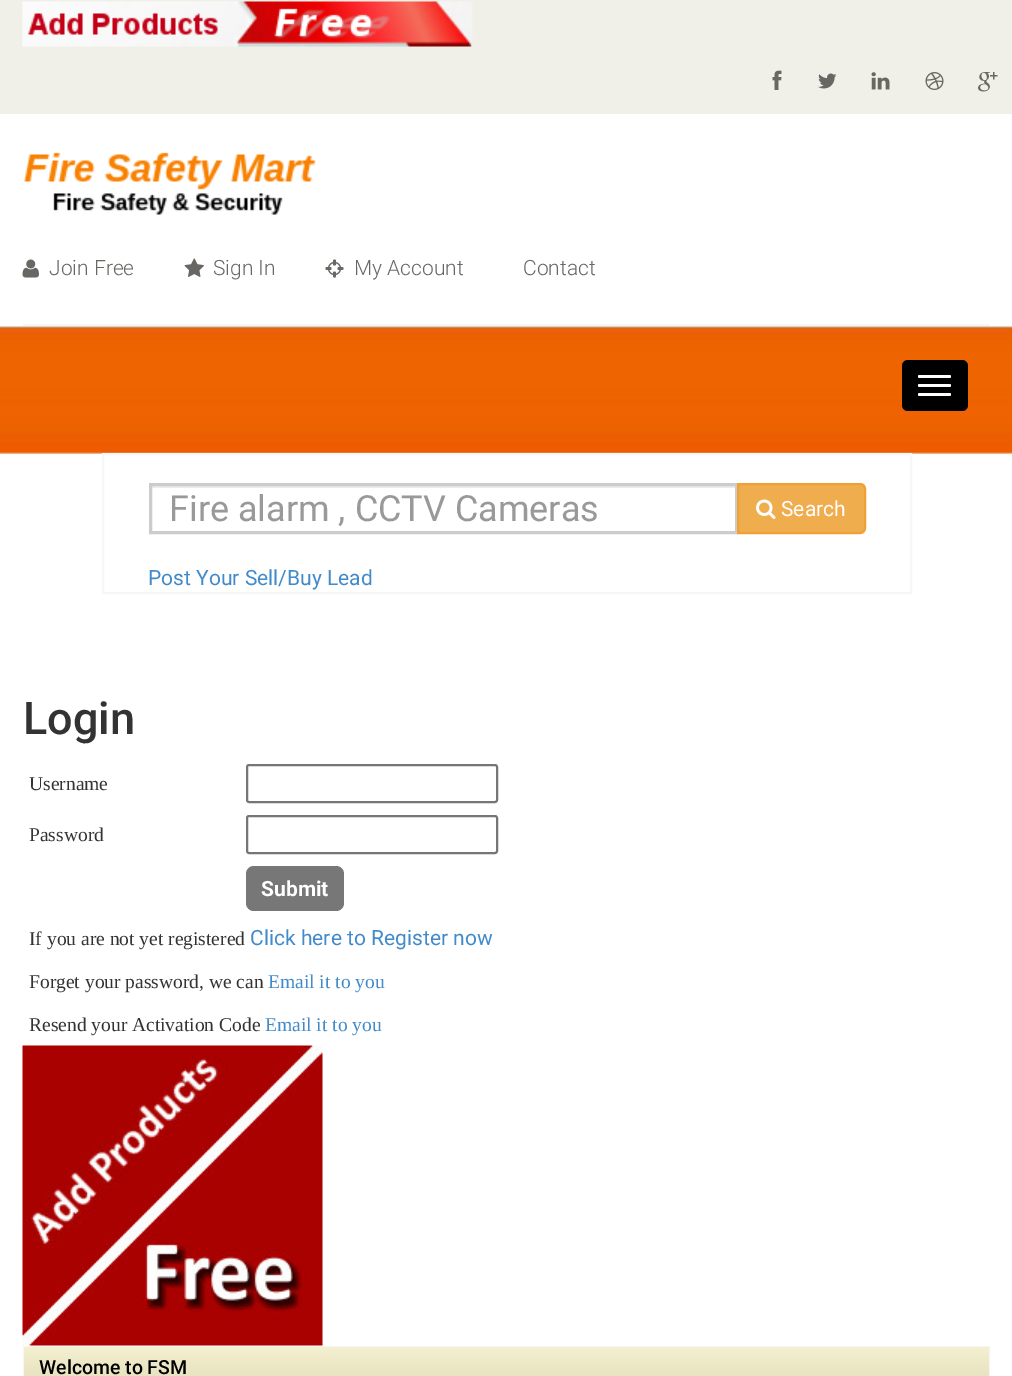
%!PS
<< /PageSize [1012 1376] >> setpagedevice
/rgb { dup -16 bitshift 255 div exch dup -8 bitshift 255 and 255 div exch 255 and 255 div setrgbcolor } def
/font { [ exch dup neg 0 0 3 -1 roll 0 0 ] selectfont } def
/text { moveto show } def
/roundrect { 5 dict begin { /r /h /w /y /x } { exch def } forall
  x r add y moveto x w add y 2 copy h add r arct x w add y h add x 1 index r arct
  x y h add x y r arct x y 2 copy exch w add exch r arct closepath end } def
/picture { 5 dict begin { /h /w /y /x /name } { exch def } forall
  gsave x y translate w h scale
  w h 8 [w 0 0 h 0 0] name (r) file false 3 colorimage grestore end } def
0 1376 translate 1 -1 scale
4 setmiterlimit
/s1 { /Roboto-Light 21 font 16#696763 rgb } def
/s2 { /Roboto-Regular 36 font 16#999999 rgb } def
/s3 { /Roboto-Regular 21 font 16#FFFFFF rgb } def
/s4 { /Roboto-Regular 21 font 16#428BCA rgb } def
/s5 { /Roboto-Medium 45 font 16#333333 rgb } def
/s6 { /LiberationSerif-Regular 19.5 font 16#333333 rgb } def
/s7 { /Roboto-Bold 21 font 16#FFFFFF rgb } def
/s8 { /LiberationSerif-Regular 19.5 font 16#428BCA rgb } def
/s9 { /Roboto-Medium 19.5 font 16#000000 rgb } def
16#FFFFFF rgb
0 0 1012 1376 rectfill
16#F0F0E9 rgb
0 0 1012 114 rectfill
(pic1.raw) 22 1 451 46 picture
(pic2.raw) 772 70 10 20 picture
(pic3.raw) 818 73 19 16 picture
(pic4.raw) 871 72 19 18 picture
(pic5.raw) 925 72 19 18 picture
(pic6.raw) 978 72 20 20 picture
16#F5F5F5 rgb
23 324 967 2 rectfill
(pic7.raw) 23 152 293 63 picture
(pic8.raw) 22 259 17 19 picture
s1
(Join Free) 49 275 text
(pic9.raw) 184 258 20 19 picture
(Sign In) 213 275 text
(pic10.raw) 325 259 19 19 picture
(My Account) 354 275 text
(Contact) 523 275 text
(pic11.raw) 0 326 1012 128 picture
16#000000 rgb
902 360 66 51 6 roundrect fill
16#FFFFFF rgb
918 375 33 3 1.5 roundrect fill
918 384 33 3 1.5 roundrect fill
918 393 33 3 1.5 roundrect fill
16#F7F7F5 rgb
2 setlinewidth
103 454 808 139 rectstroke
16#ECECEC rgb
152 486 583 2 rectfill
16#CCCCCC rgb
3 setlinewidth
150.5 484.5 586 48 rectstroke
s2
(Fire alarm , CCTV Cameras) 169 521 text
16#F0AD4E rgb
738 484 moveto 860 484 lineto 863 484 865 486 865 489 curveto 865 528 lineto 865 531 863 533 860 533 curveto 738 533 lineto closepath gsave fill grestore
16#EEA236 rgb
2 setlinewidth
stroke
(pic12.raw) 756 499 20 20 picture
s3
(Search) 781 516 text
s4
(Post Your Sell/Buy Lead) 148 585 text
s5
(Login) 23 734 text
s6
(Username) 29 790 text
16#767676 rgb
247 765 250 37 2 roundrect stroke
s6
(Password) 29 841 text
16#767676 rgb
247 816 250 37 2 roundrect stroke
16#777777 rgb
246 866 98 45 8 roundrect fill
s7
(Submit) 261 896 text
s6
(If you are not yet registered) 29 945 text
s4
(Click here to Register now) 250 945 text
s6
(Forget your password, we can) 29 988 text
s8
(Email it to you) 268 988 text
s6
(Resend your Activation Code) 29 1031 text
s8
(Email it to you) 265 1031 text
(pic13.raw) 22 1045 301 301 picture
16#F7F5F5 rgb
24 1347 965 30 rectstroke
gsave 24 1347 moveto 989 1347 lineto 989 1376 lineto 24 1376 lineto closepath clip newpath
<< /ShadingType 2 /ColorSpace /DeviceRGB /Coords [24 1347 24 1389] /Extend [true true] /Function << /FunctionType 2 /Domain [0 1] /C0 [0.957 0.945 0.816] /C1 [0.886 0.863 0.729] /N 1 >> >> shfill grestore
s9
(Welcome to FSM) 39 1374 text
showpage
